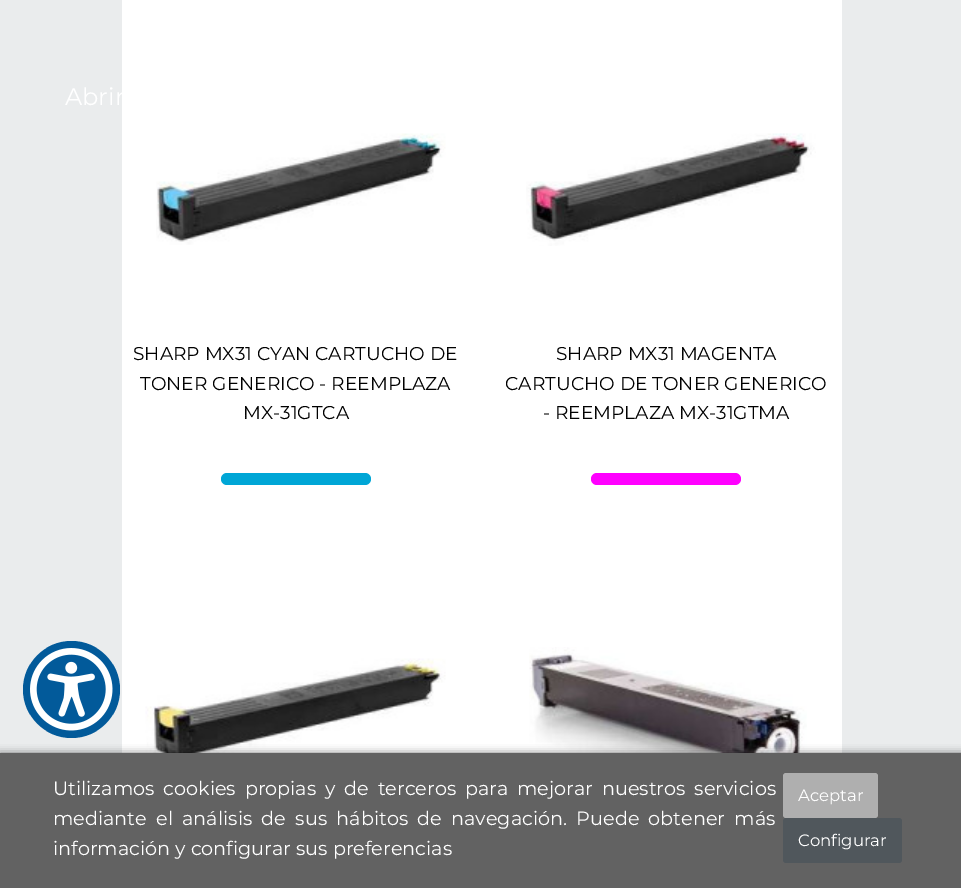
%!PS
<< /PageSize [961 888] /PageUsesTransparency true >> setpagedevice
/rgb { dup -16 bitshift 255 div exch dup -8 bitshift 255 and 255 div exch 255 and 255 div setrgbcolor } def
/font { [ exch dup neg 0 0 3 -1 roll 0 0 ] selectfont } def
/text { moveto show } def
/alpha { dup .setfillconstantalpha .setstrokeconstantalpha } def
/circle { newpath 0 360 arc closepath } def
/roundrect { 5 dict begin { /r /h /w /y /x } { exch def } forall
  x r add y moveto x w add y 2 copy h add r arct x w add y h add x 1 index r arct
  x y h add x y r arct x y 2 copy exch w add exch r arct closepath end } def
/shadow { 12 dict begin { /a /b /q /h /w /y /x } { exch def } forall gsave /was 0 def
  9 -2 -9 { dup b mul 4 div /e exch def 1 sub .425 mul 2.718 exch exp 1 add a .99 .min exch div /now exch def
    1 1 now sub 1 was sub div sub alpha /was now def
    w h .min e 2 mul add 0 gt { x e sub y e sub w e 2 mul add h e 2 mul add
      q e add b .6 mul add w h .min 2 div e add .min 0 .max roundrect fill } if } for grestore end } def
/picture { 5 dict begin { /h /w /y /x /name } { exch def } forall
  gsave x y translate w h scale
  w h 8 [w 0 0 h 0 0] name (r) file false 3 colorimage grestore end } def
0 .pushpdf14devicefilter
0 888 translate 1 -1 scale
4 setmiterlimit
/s1 { /Montserrat-Regular 24 font 16#FFFFFF rgb } def
/s2 { /Montserrat-Regular 18.6 font 16#000000 rgb } def
/s3 { /Montserrat-Regular 19.2 font 16#FFFFFF rgb } def
/s4 { /Montserrat-Regular 16.5 font 16#FFFFFF rgb } def
16#EAECED rgb
0 0 961 888 rectfill
16#FFFFFF rgb
122 0 720 753 rectfill
s1
(Abrir) 65 105 text
16#025A9A rgb
71.5 689.5 48.5 circle fill
(pic1.raw) 30 648 83 83 picture
(pic2.raw) 156 133 290 112 picture
s2
(SHARP MX31 CYAN CARTUCHO DE) 133 360 text
(TONER GENERICO - REEMPLAZA) 140 390 text
(MX-31GTCA) 243 419 text
16#00A6D6 rgb
221 473 150 12 6 roundrect fill
(pic3.raw) 526 133 290 113 picture
s2
(SHARP MX31 MAGENTA) 556 360 text
(CARTUCHO DE TONER GENERICO) 505 390 text
(- REEMPLAZA MX-31GTMA) 543 419 text
16#FF00FF rgb
591 473 150 12 6 roundrect fill
(pic4.raw) 145 658 301 95 picture
(pic5.raw) 529 647 278 106 picture
16#000000 rgb
0 753 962 135 0 4 0.5 shadow
16#626262 rgb
0 753 961 135 rectfill
/Montserrat-Regular 19.2 font
16#FFFFFF rgb
53 795 moveto 3.75 0 32 (Utilizamos cookies propias y de terceros para mejorar nuestros servicios) widthshow
53 825 moveto 4.25 0 32 (mediante el análisis de sus hábitos de navegación. Puede obtener más) widthshow
(información y configurar sus preferencias) 53 855 text
16#AFAFAF rgb
783 773 95 45 3 roundrect fill
s4
(Aceptar) 798 801 text
16#50575C rgb
783 818 119 45 3 roundrect fill
s4
(Configurar) 798 846 text
.poppdf14devicefilter showpage
